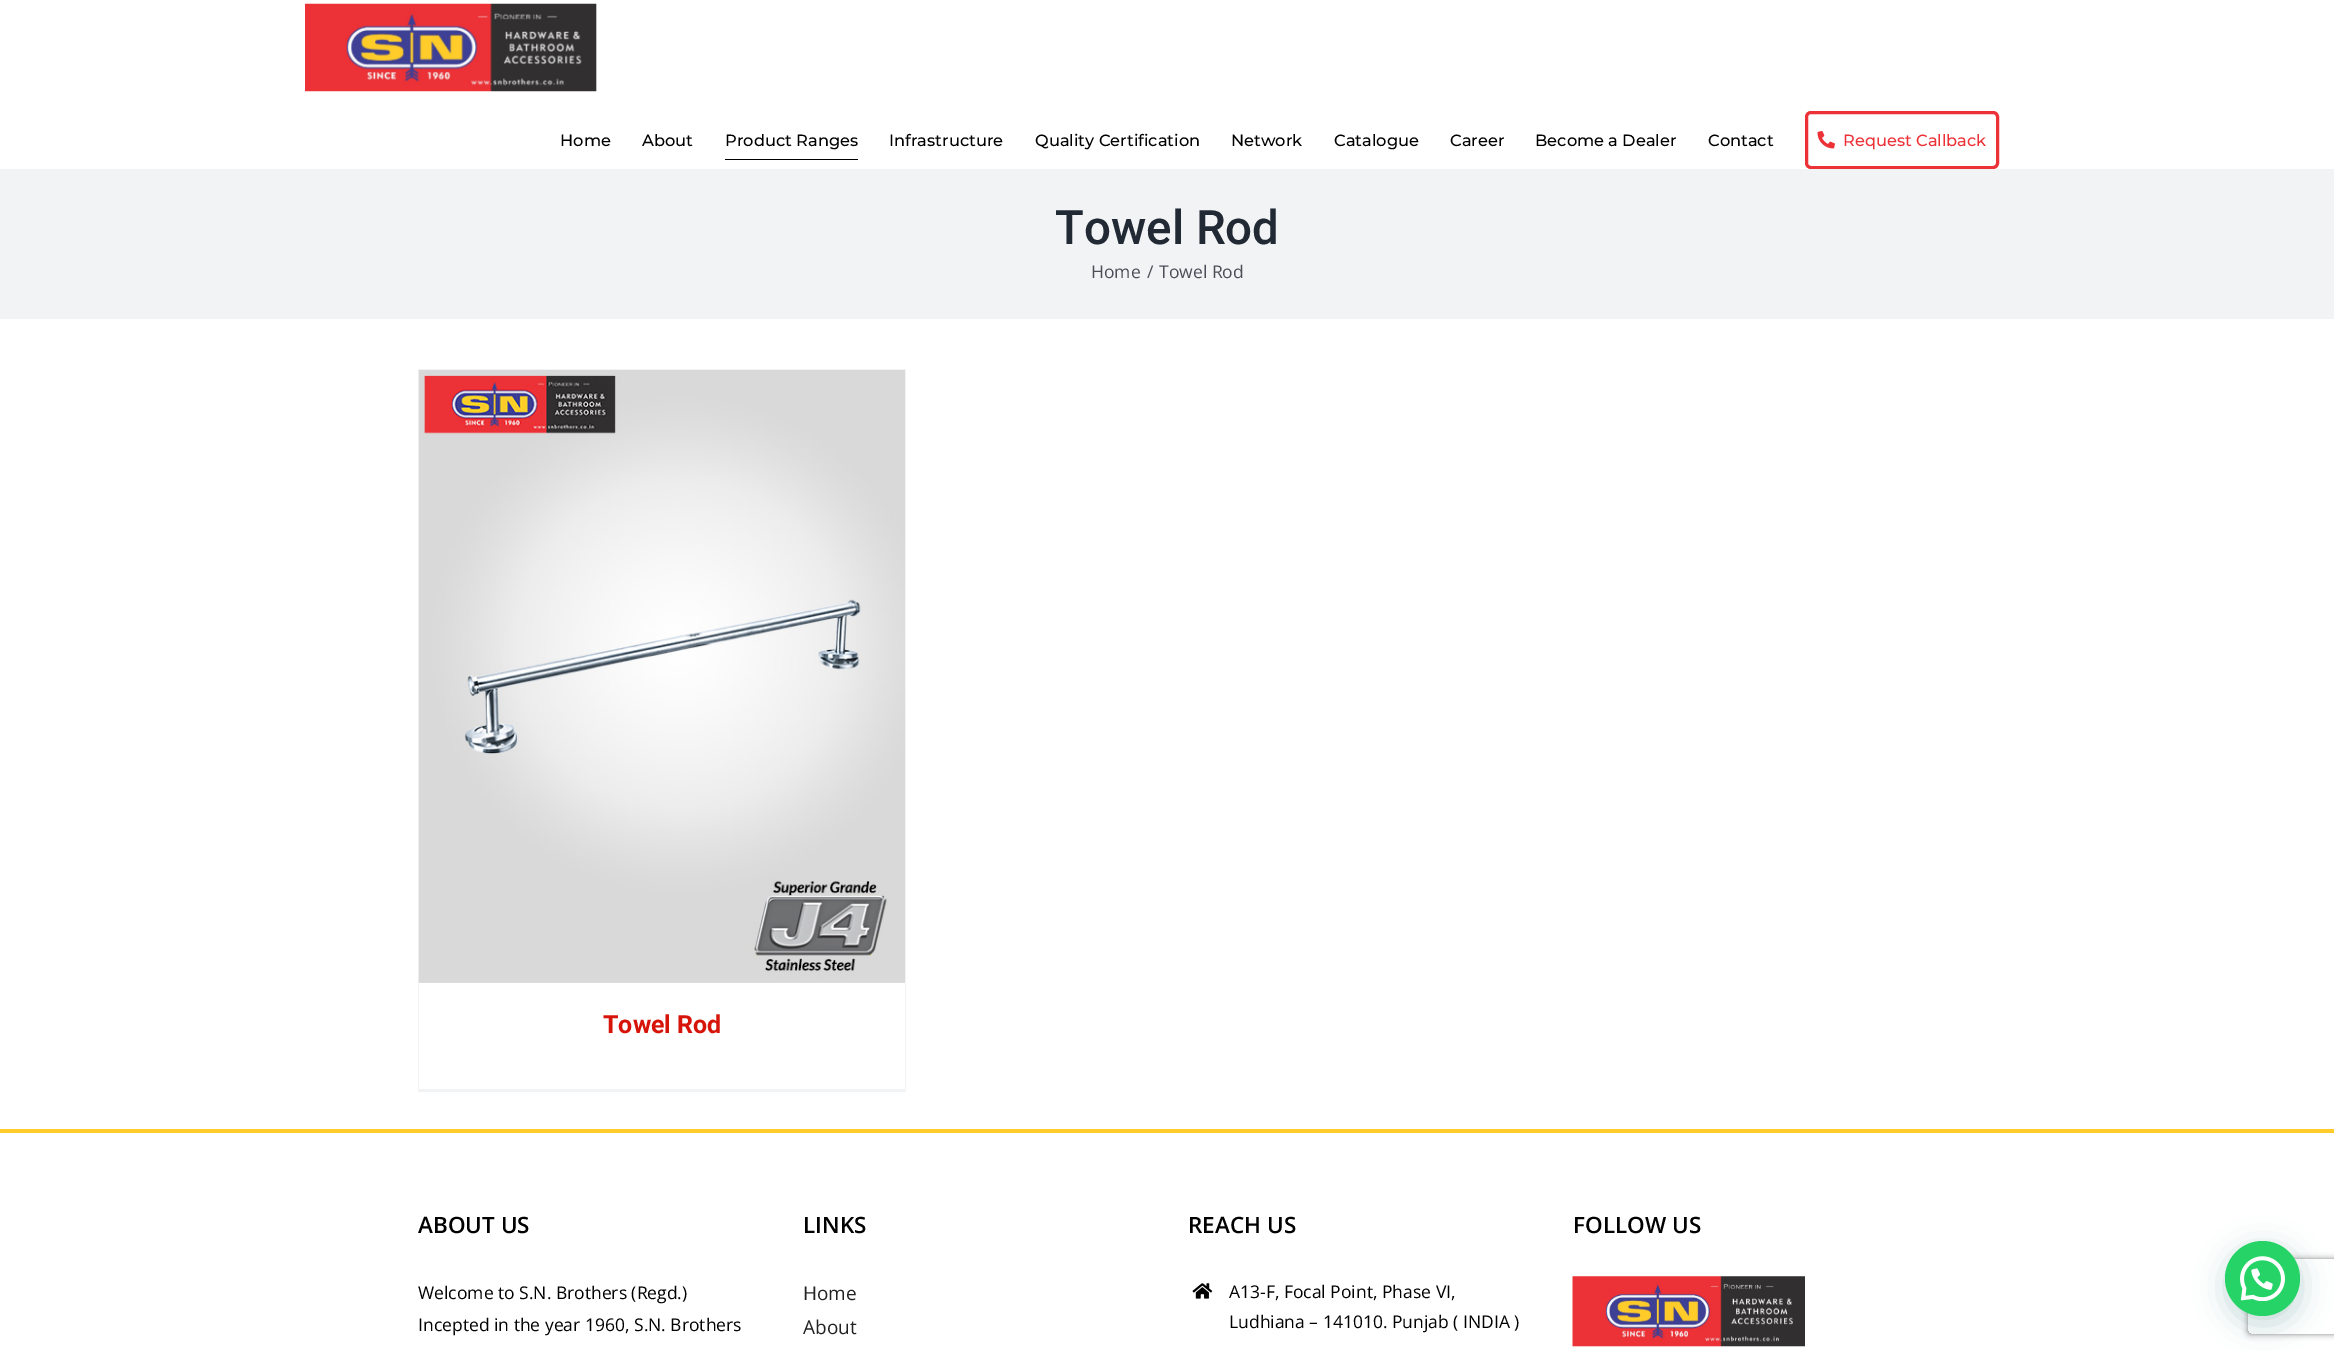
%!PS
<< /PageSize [2334 1351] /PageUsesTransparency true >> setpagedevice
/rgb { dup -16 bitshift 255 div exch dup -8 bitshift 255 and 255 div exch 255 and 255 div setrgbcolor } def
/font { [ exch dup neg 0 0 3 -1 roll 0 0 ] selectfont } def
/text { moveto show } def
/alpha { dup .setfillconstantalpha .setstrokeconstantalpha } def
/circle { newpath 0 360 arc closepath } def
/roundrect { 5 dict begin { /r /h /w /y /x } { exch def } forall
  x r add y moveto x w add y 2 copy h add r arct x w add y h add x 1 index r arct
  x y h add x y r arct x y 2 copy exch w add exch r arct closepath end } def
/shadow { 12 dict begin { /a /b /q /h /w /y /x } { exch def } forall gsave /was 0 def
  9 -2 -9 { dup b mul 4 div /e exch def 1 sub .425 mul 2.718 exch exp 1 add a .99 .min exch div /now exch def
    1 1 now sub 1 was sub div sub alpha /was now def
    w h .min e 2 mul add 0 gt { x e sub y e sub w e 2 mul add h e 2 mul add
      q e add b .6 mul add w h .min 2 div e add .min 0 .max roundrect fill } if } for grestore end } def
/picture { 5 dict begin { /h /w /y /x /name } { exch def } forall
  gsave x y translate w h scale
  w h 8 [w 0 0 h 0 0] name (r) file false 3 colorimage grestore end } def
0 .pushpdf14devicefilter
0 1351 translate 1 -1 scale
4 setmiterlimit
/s1 { /Montserrat-Thin 16.25 font 16#000000 rgb } def
/s2 { /Montserrat-Thin 16.25 font 16#EC3237 rgb } def
/s3 { /Roboto-Medium 47.5 font 16#212934 rgb } def
/s4 { /OpenSans-Regular 17.5 font 16#4A4E57 rgb } def
/s5 { /Roboto-Bold 25 font 16#D61409 rgb } def
/s6 { /OpenSans-SemiBold 22.5 font 16#000000 rgb } def
/s7 { /OpenSans-Regular 17.5 font 16#000000 rgb } def
/s8 { /OpenSans-Regular 19 font 16#222222 rgb } def
16#FFFFFF rgb
0 0 2334 1351 rectfill
(pic1.raw) 305 3 292 89 picture
s1
(Home) 560 146 text
(About) 642 146 text
(Product Ranges) 725 146 text
725 159 133 1 rectfill
(Infrastructure) 889 146 text
(Quality Certification) 1035 146 text
(Network) 1231 146 text
(Catalogue) 1334 146 text
(Career) 1450 146 text
(Become a Dealer) 1535 146 text
(Contact) 1708 146 text
16#EC3237 rgb
3 setlinewidth
1806.5 112.5 191 55 4.5 roundrect stroke
(pic2.raw) 1817 131 18 18 picture
(Request Callback) 1843 146 text
16#F2F3F5 rgb
0 169 2334 150 rectfill
s3
(Towel Rod) 1055 244 text
s4
(Home) 1091 278 text
(/) 1147 278 text
(Towel Rod) 1159 278 text
16#F2F3F5 rgb
418 369 488 1 rectfill
905 369 1 722 rectfill
418 1089 488 3 rectfill
418 369 1 722 rectfill
16#E2E2E2 rgb
419 982 486 1 rectfill
(pic3.raw) 418 370 487 613 picture
s5
(Towel Rod) 603 1033 text
16#FFCC2A rgb
0 1129 2334 4 rectfill
s6
(ABOUT US) 418 1233 text
s7
(Welcome to S.N. Brothers \(Regd.\)) 418 1299 text
(Incepted in the year 1960, S.N. Brothers) 418 1331 text
s6
(LINKS) 803 1233 text
s8
(Home) 803 1300 text
(About) 803 1334 text
s6
(REACH US) 1188 1233 text
(pic4.raw) 1192 1283 21 16 picture
s7
(A13-F, Focal Point, Phase VI,) 1229 1298 text
(Ludhiana – 141010. Punjab \( INDIA \)) 1229 1328 text
s6
(FOLLOW US) 1573 1233 text
(pic5.raw) 1572 1276 233 71 picture
16#075E54 rgb
2226 1249 75 75 37.5 15 0.24 shadow
gsave
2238 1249 moveto 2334 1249 lineto 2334 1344 lineto 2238 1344 lineto closepath 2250.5 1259 moveto 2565.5 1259 lineto 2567 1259 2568 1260 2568 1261.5 curveto 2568 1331.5 lineto 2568 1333 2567 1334 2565.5 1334 curveto 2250.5 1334 lineto 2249 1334 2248 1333 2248 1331.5 curveto 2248 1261.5 lineto 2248 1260 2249 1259 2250.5 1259 curveto closepath eoclip newpath
16#808080 rgb
2248 1259 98 75 2.5 3 1 shadow
grestore
16#25D366 rgb
2262.5 1278.5 37.5 circle fill
(pic6.raw) 2240 1256 45 45 picture
.poppdf14devicefilter showpage
